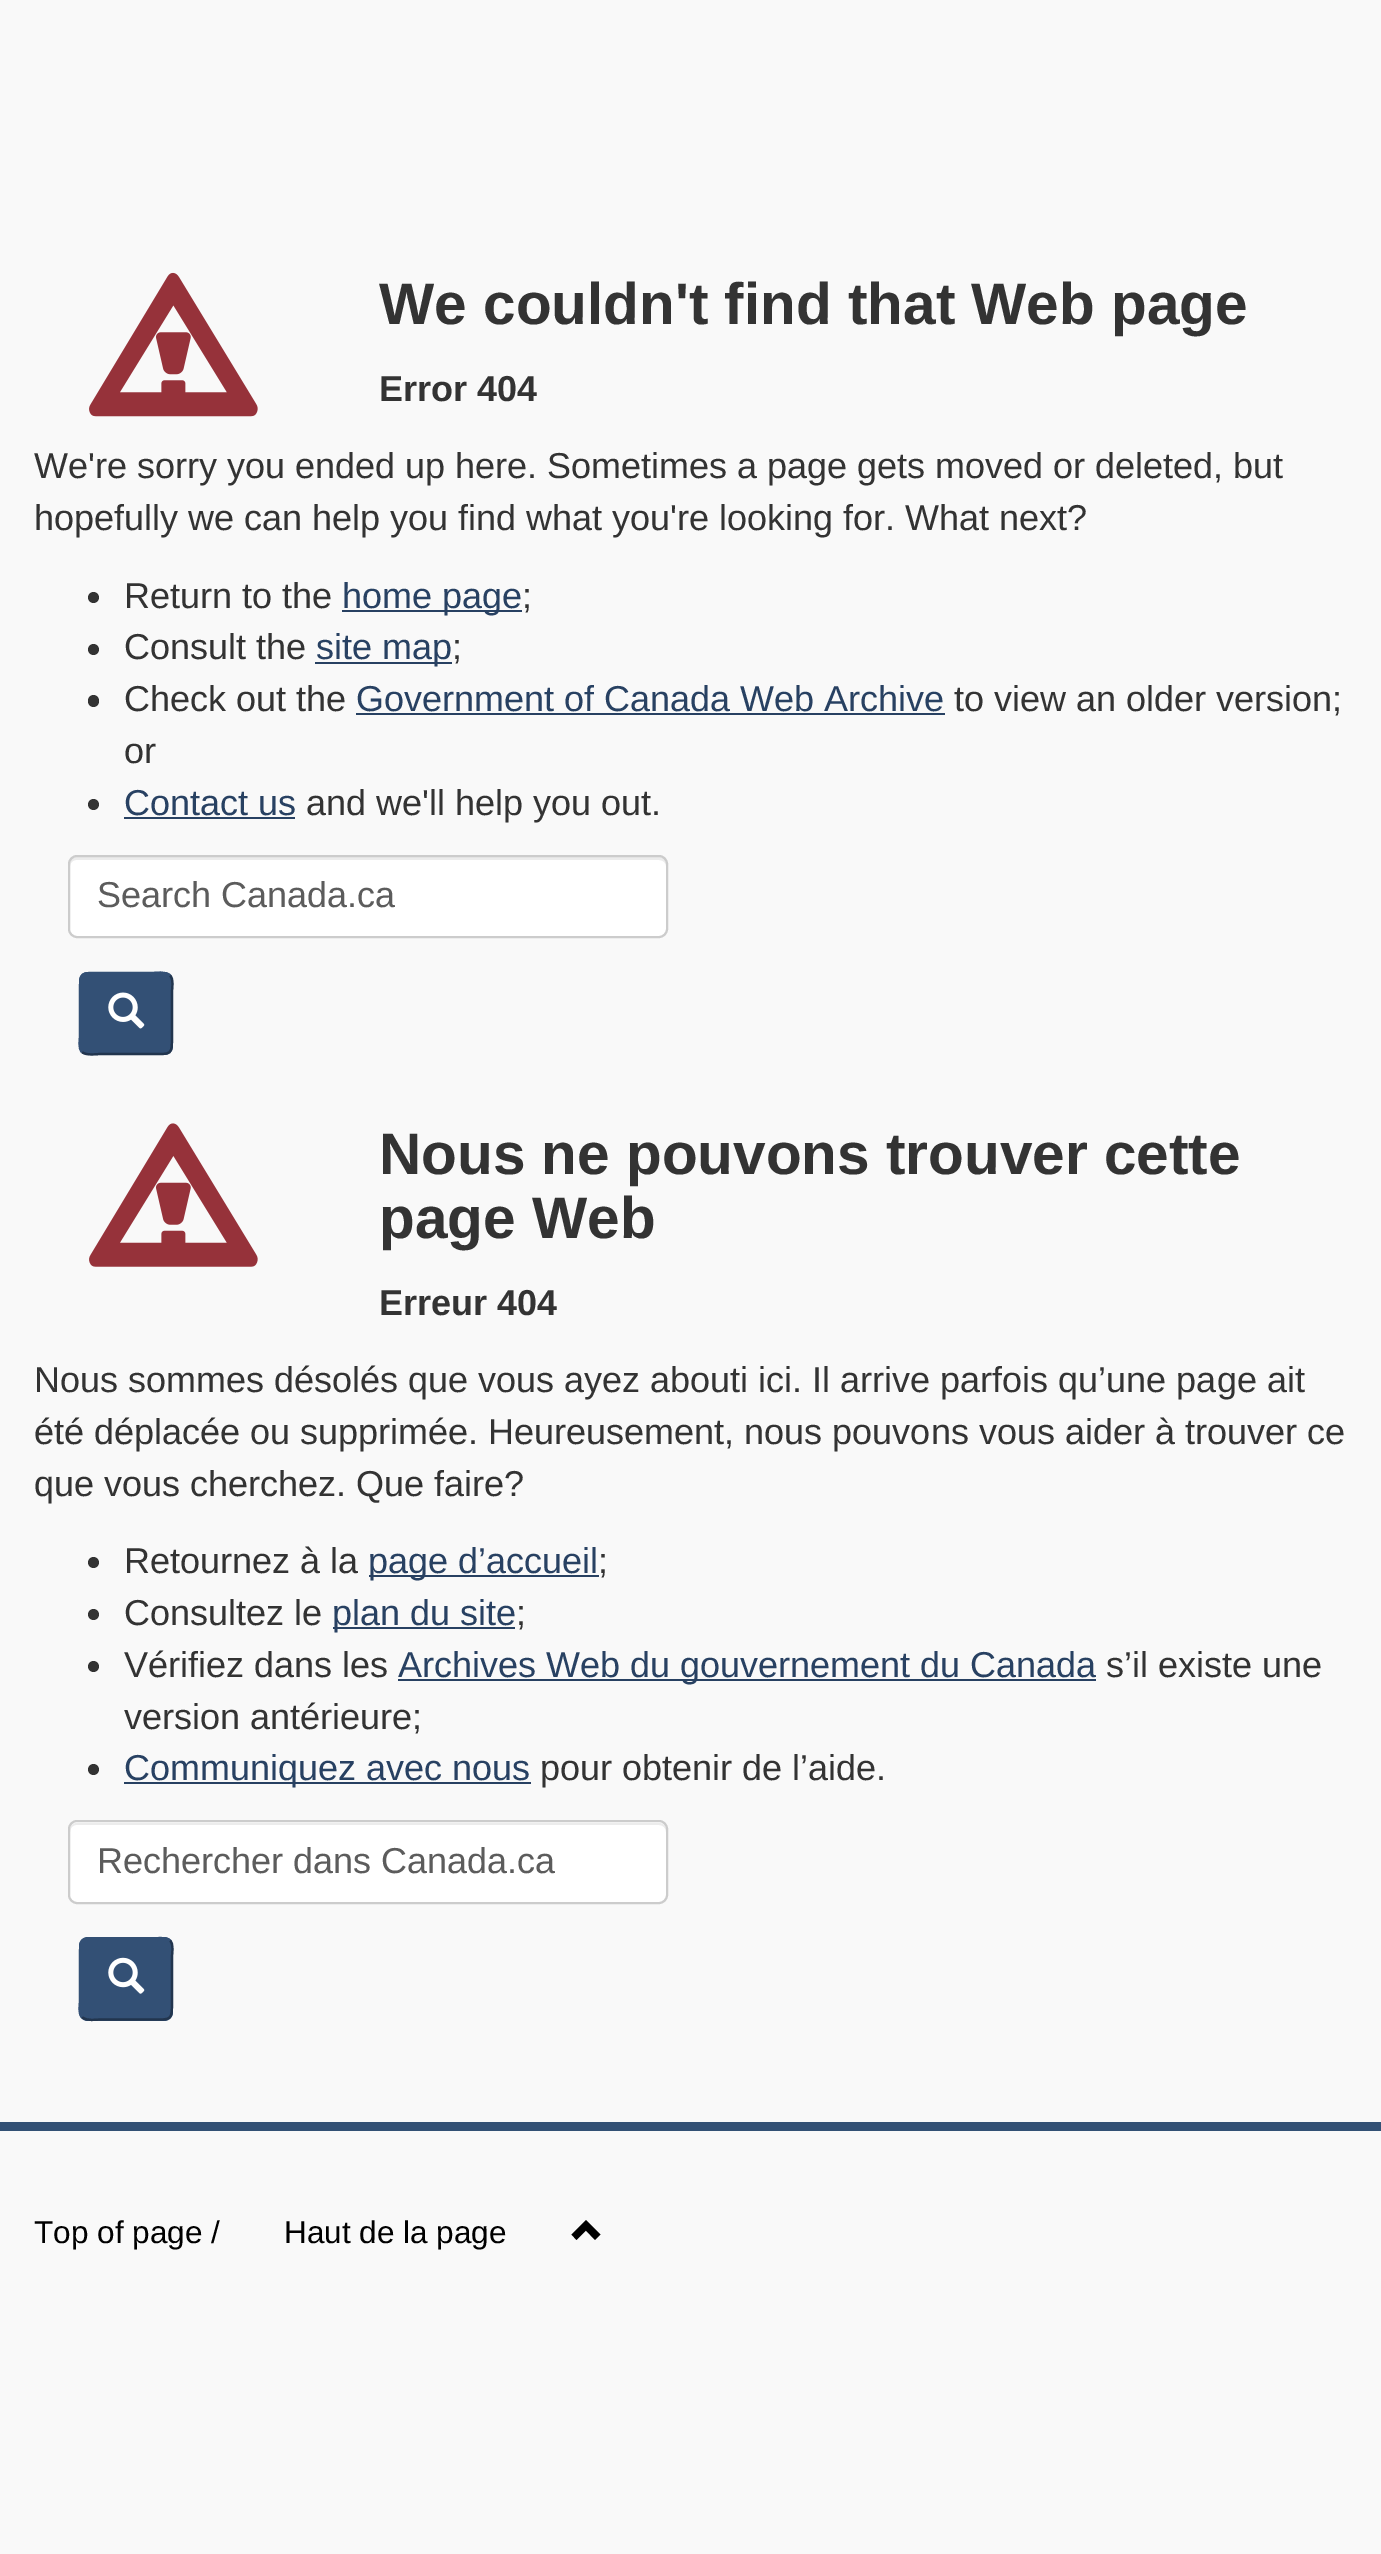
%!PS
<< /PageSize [1381 2554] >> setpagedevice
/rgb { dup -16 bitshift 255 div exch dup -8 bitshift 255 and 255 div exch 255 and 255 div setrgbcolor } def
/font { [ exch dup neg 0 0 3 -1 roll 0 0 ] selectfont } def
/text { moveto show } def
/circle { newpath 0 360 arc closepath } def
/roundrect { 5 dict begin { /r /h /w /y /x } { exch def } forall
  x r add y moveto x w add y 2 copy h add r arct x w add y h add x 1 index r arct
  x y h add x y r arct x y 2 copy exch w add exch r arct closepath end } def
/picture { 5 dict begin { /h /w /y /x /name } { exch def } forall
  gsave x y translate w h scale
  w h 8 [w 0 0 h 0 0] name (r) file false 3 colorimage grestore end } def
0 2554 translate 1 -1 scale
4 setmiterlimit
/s1 { /LiberationSans-Bold 58.5 font 16#333333 rgb } def
/s2 { /LiberationSans-Bold 36 font 16#333333 rgb } def
/s3 { /LiberationSans-Regular 36 font 16#333333 rgb } def
/s4 { /LiberationSans-Regular 36 font 16#284162 rgb } def
/s5 { /LiberationSans-Regular 36 font 16#5C5C5C rgb } def
/s6 { /LiberationSans-Regular 31.5 font 16#000000 rgb } def
16#F9F9F9 rgb
0 0 1381 2554 rectfill
(pic1.raw) 89 272 169 145 picture
s1
(We couldn't find that Web page) 379 324 text
s2
(Error 404) 379 401 text
s3
(We're sorry you ended up here. Sometimes a page gets moved or deleted, but) 34 478 text
(hopefully we can help you find what you're looking for. What next?) 34 530 text
93.5 597.5 5.5 circle fill
(Return to the) 124 608 text
16#284162 rgb
342 610 180 2 rectfill
(home page) 342 608 text
s3
(;) 522 608 text
93.5 649.5 5.5 circle fill
(Consult the) 124 659 text
16#284162 rgb
315 662 137 2 rectfill
(site map) 316 659 text
s3
(;) 452 659 text
88 695 11 12 5.5 roundrect fill
(Check out the) 124 711 text
s4
(Government of Canada Web Archive) 356 711 text
356 713 589 2 rectfill
s3
(to view an older version;) 954 711 text
(or) 124 763 text
93.5 804.5 5.5 circle fill
s4
(Contact us) 124 815 text
124 817 171 2 rectfill
s3
(and we'll help you out.) 306 815 text
16#FFFFFF rgb
68 855 600 83 9 roundrect fill
16#ECECEC rgb
76 860 moveto 659 860 lineto 663 860 666 863 666 866 curveto 666 864 lineto 666 860 663 857 659 857 curveto 77 857 lineto 73 857 70 860 70 864 curveto 70 866 lineto 70 863 73 860 76 860 curveto closepath fill
16#CCCCCC rgb
2 setlinewidth
69 856 598 81 8 roundrect stroke
s5
(Search Canada.ca) 97 907 text
16#335075 rgb
79 972 94 83 9 roundrect fill
16#22354E rgb
2.2 setlinewidth
170 975.5 moveto 174 979.5 172 987.5 172 992 curveto 172 1035.5 lineto 172 1055.5 172 1054 151.5 1054 curveto 100.5 1054 lineto 96.5 1054 86.5 1056 82 1052 curveto stroke
16#335075 rgb
82 1052 moveto 78 1048 80 1039.5 80 1035.5 curveto 80 992 lineto 80 971.5 80 973 100.5 973 curveto 151.5 973 lineto 155.5 973 165.5 971 170 975.5 curveto stroke
(pic2.raw) 108 992 37 37 picture
(pic3.raw) 89 1123 169 144 picture
s1
(Nous ne pouvons trouver cette) 379 1174 text
(page Web) 379 1238 text
s2
(Erreur 404) 379 1315 text
s3
(Nous sommes désolés que vous ayez abouti ici. Il arrive parfois qu’une page ait) 34 1392 text
(été déplacée ou supprimée. Heureusement, nous pouvons vous aider à trouver ce) 34 1444 text
(que vous cherchez. Que faire?) 34 1496 text
93.5 1562.5 5.5 circle fill
(Retournez à la) 124 1573 text
16#284162 rgb
369 1575 230 2 rectfill
(page d’accueil) 368 1573 text
s3
(;) 598 1573 text
93.5 1614.5 5.5 circle fill
(Consultez le) 124 1625 text
16#284162 rgb
333 1627 182 2 rectfill
(plan du site) 332 1625 text
s3
(;) 516 1625 text
93.5 1666.5 5.5 circle fill
(Vérifiez dans les) 124 1677 text
16#284162 rgb
398 1679 698 2 rectfill
(Archives Web du gouvernement du Canada) 398 1677 text
s3
(s’il existe une) 1106 1677 text
(version antérieure;) 124 1729 text
93.5 1769.5 5.5 circle fill
16#284162 rgb
124 1782 407 2 rectfill
(Communiquez avec nous) 124 1780 text
s3
(pour obtenir de l’aide.) 540 1780 text
16#FFFFFF rgb
68 1820 600 84 9 roundrect fill
16#ECECEC rgb
76 1825 moveto 659 1825 lineto 663 1825 666 1828 666 1832 curveto 666 1830 lineto 666 1826 663 1823 659 1823 curveto 77 1823 lineto 73 1823 70 1826 70 1830 curveto 70 1832 lineto 70 1828 73 1825 76 1825 curveto closepath fill
16#CCCCCC rgb
2 setlinewidth
69 1821 598 82 8 roundrect stroke
s5
(Rechercher dans Canada.ca) 97 1873 text
16#335075 rgb
79 1937 94 84 9 roundrect fill
16#22354E rgb
2.2 setlinewidth
170 1940.5 moveto 174 1944.5 172 1953 172 1957 curveto 172 2000.5 lineto 172 2021 172 2019.5 151.5 2019.5 curveto 100.5 2019.5 lineto 96.5 2019.5 86.5 2021.5 82 2017 curveto stroke
16#335075 rgb
82 2017 moveto 78 2013 80 2005 80 2000.5 curveto 80 1957 lineto 80 1937 80 1938.5 100.5 1938.5 curveto 151.5 1938.5 lineto 155.5 1938.5 165.5 1936.5 170 1940.5 curveto stroke
(pic4.raw) 108 1957 37 37 picture
16#335175 rgb
0 2122 1381 9 rectfill
s6
(Top of page /) 34 2243 text
(Haut de la page) 284 2243 text
600.5 2234.5 moveto 595 2240 lineto 586 2230.5 lineto 576.5 2240 lineto 571.5 2234.5 lineto 586 2220 lineto closepath fill
showpage
